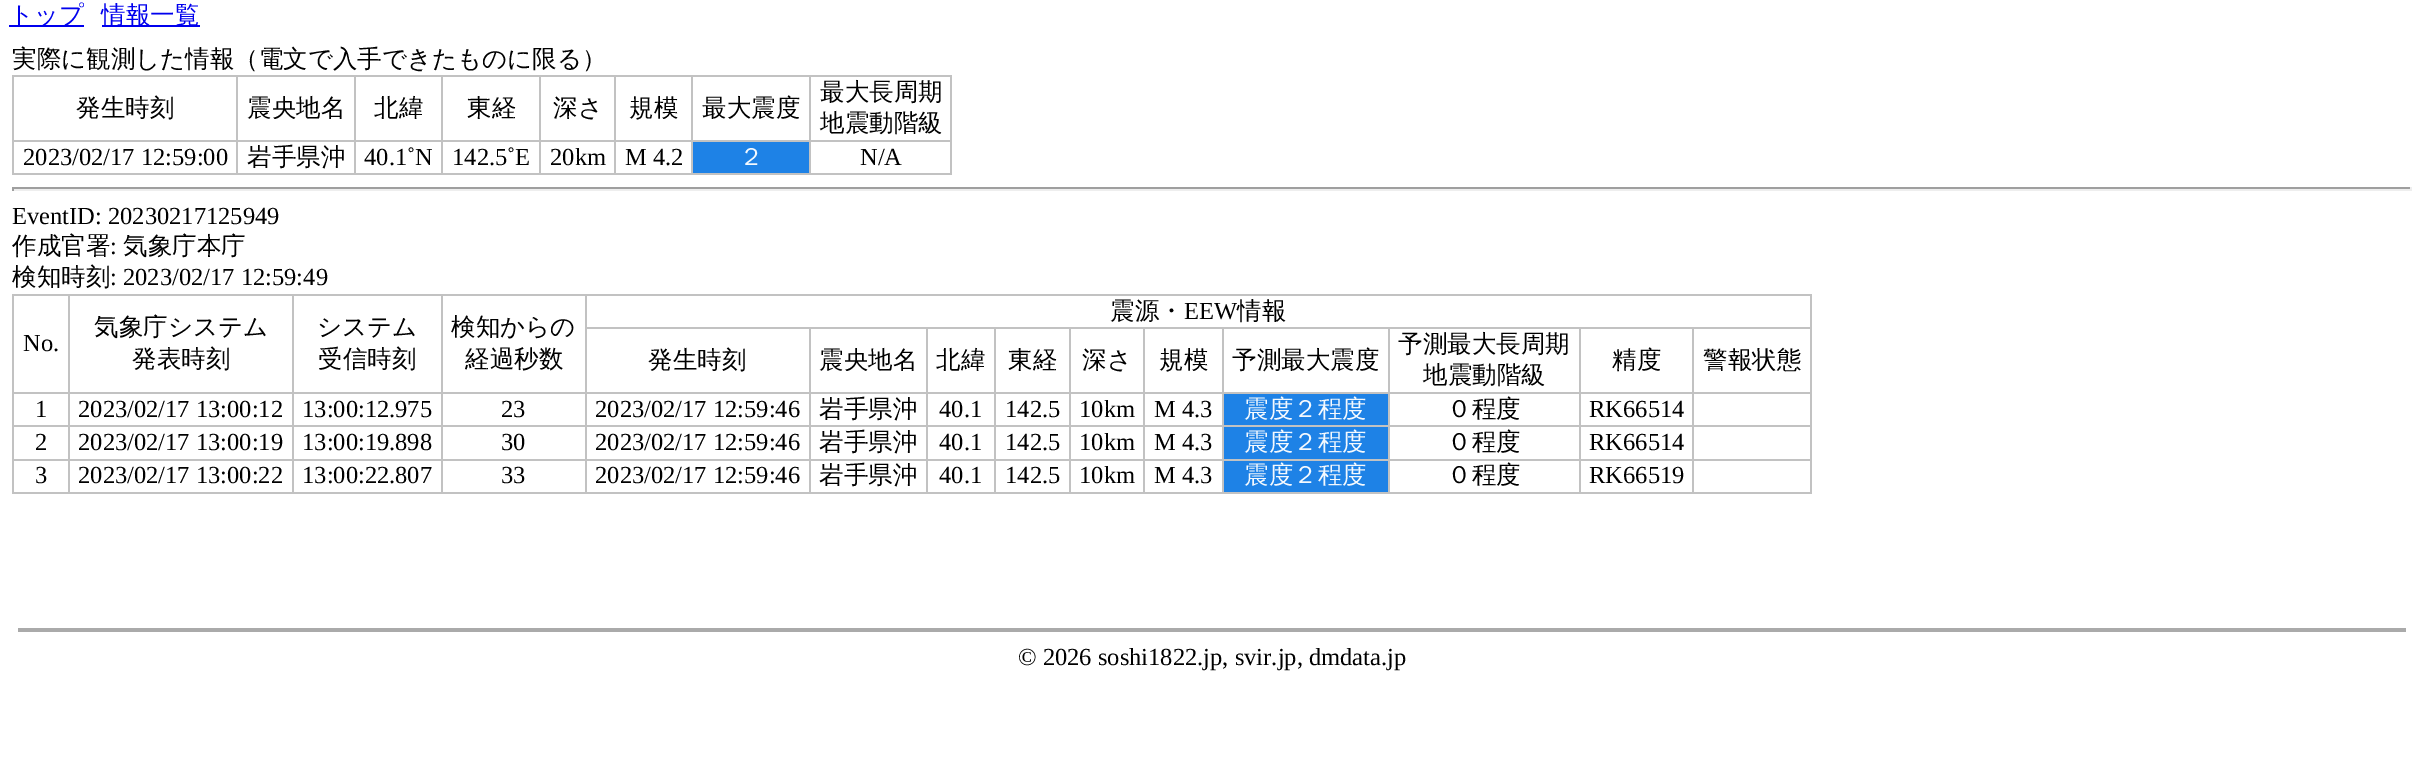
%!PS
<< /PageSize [2423 758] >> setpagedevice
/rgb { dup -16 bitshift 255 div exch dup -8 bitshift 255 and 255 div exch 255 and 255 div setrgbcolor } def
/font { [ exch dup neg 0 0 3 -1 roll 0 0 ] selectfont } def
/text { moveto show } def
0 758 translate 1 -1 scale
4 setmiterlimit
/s1 { /WenQuanYiZenHei-Medium 24.5 font 16#0000EE rgb } def
/s2 { /WenQuanYiZenHei-Medium 24.5 font 16#000000 rgb } def
/s3 { /LiberationSerif-Regular 24.5 font 16#000000 rgb } def
/s4 { /WenQuanYiZenHei-Medium 24.5 font 16#F4F9FE rgb } def
16#FFFFFF rgb
0 0 2423 758 rectfill
16#0000EE rgb
9 25 75 2 rectfill
s1
(トップ) 9 23 text
102 25 98 2 rectfill
(情報一覧) 101 23 text
s2
(実際に観測した情報（電文で入手できたものに限る）) 12 67 text
16#C2C2C2 rgb
809 75 143 2 rectfill
809 140 143 2 rectfill
950 140 2 35 rectfill
809 173 143 2 rectfill
809 140 2 35 rectfill
691 140 119 2 rectfill
809 75 2 67 rectfill
691 75 119 2 rectfill
691 173 119 2 rectfill
691 140 2 35 rectfill
614 140 79 2 rectfill
691 75 2 67 rectfill
614 75 79 2 rectfill
614 173 79 2 rectfill
614 140 2 35 rectfill
539 140 77 2 rectfill
614 75 2 67 rectfill
539 75 77 2 rectfill
539 173 77 2 rectfill
539 140 2 35 rectfill
441 140 100 2 rectfill
539 75 2 67 rectfill
441 75 100 2 rectfill
441 173 100 2 rectfill
441 140 2 35 rectfill
354 140 89 2 rectfill
441 75 2 67 rectfill
354 75 89 2 rectfill
354 173 89 2 rectfill
354 140 2 35 rectfill
236 140 119 2 rectfill
354 75 2 67 rectfill
236 75 119 2 rectfill
236 173 119 2 rectfill
236 140 2 35 rectfill
12 140 226 2 rectfill
236 75 2 67 rectfill
12 75 226 2 rectfill
12 173 226 2 rectfill
12 140 2 35 rectfill
12 75 2 67 rectfill
s2
(発生時刻) 76 116 text
(震央地名) 247 116 text
(北緯) 374 116 text
(東経) 467 116 text
(深さ) 553 116 text
(規模) 629 116 text
(最大震度) 702 116 text
16#C2C2C2 rgb
950 75 2 67 rectfill
s2
(最大長周期) 820 100 text
(地震動階級) 820 131 text
s3
(2023/02/17 12:59:00) 23 165 text
s2
(岩手県沖) 247 165 text
s3
(40.1˚N) 364 165 text
(142.5˚E) 452 165 text
(20km) 550 165 text
(M 4.2) 625 165 text
16#1E82E6 rgb
693 142 116 31 rectfill
s4
(２) 739 165 text
s3
(N/A) 860 165 text
16#9F9F9F rgb
12 187 2400 2 rectfill
16#EEEEEE rgb
2410 187 2 4 rectfill
12 189 2400 2 rectfill
16#9F9F9F rgb
12 187 2 4 rectfill
s3
(EventID: 20230217125949) 12 224 text
s2
(作成官署) 12 254 text
s3
(:) 110 254 text
s2
(気象庁本庁) 123 254 text
(検知時刻) 12 285 text
s3
(: 2023/02/17 12:59:49) 110 285 text
16#C2C2C2 rgb
585 294 1226 2 rectfill
1692 327 119 2 rectfill
1692 392 119 2 rectfill
1692 425 119 2 rectfill
1692 459 119 2 rectfill
1810 459 2 35 rectfill
1810 425 2 35 rectfill
1810 392 2 35 rectfill
1810 327 2 67 rectfill
1810 294 2 35 rectfill
1692 492 119 2 rectfill
1692 459 2 35 rectfill
1579 459 115 2 rectfill
1692 425 2 35 rectfill
1579 425 115 2 rectfill
1692 392 2 35 rectfill
1579 392 115 2 rectfill
1692 327 2 67 rectfill
1579 327 115 2 rectfill
1579 492 115 2 rectfill
1579 459 2 35 rectfill
1388 459 192 2 rectfill
1579 425 2 35 rectfill
1388 425 192 2 rectfill
1579 392 2 35 rectfill
1388 392 192 2 rectfill
1579 327 2 67 rectfill
1388 327 192 2 rectfill
1388 492 192 2 rectfill
1388 459 2 35 rectfill
1222 459 168 2 rectfill
1388 425 2 35 rectfill
1222 425 168 2 rectfill
1388 392 2 35 rectfill
1222 392 168 2 rectfill
1388 327 2 67 rectfill
1222 327 168 2 rectfill
1222 492 168 2 rectfill
1222 459 2 35 rectfill
1143 459 80 2 rectfill
1222 425 2 35 rectfill
1143 425 80 2 rectfill
1222 392 2 35 rectfill
1143 392 80 2 rectfill
1222 327 2 67 rectfill
1143 327 80 2 rectfill
1143 492 80 2 rectfill
1143 459 2 35 rectfill
1069 459 76 2 rectfill
1143 425 2 35 rectfill
1069 425 76 2 rectfill
1143 392 2 35 rectfill
1069 392 76 2 rectfill
1143 327 2 67 rectfill
1069 327 76 2 rectfill
1069 492 76 2 rectfill
1069 459 2 35 rectfill
994 459 77 2 rectfill
1069 425 2 35 rectfill
994 425 77 2 rectfill
1069 392 2 35 rectfill
994 392 77 2 rectfill
1069 327 2 67 rectfill
994 327 77 2 rectfill
994 492 77 2 rectfill
994 459 2 35 rectfill
926 459 70 2 rectfill
994 425 2 35 rectfill
926 425 70 2 rectfill
994 392 2 35 rectfill
926 392 70 2 rectfill
994 327 2 67 rectfill
926 327 70 2 rectfill
926 492 70 2 rectfill
926 459 2 35 rectfill
809 459 119 2 rectfill
926 425 2 35 rectfill
809 425 119 2 rectfill
926 392 2 35 rectfill
809 392 119 2 rectfill
926 327 2 67 rectfill
809 327 119 2 rectfill
809 492 119 2 rectfill
809 459 2 35 rectfill
585 459 225 2 rectfill
809 425 2 35 rectfill
585 425 225 2 rectfill
809 392 2 35 rectfill
585 392 225 2 rectfill
809 327 2 67 rectfill
585 327 225 2 rectfill
585 492 225 2 rectfill
585 459 2 35 rectfill
441 459 145 2 rectfill
585 425 2 35 rectfill
441 425 145 2 rectfill
585 392 2 35 rectfill
441 392 145 2 rectfill
585 327 2 67 rectfill
585 294 2 35 rectfill
s2
(震源・) 1110 319 text
s3
(EEW) 1184 319 text
s2
(情報) 1237 319 text
16#C2C2C2 rgb
441 294 145 2 rectfill
441 492 145 2 rectfill
441 459 2 35 rectfill
292 459 151 2 rectfill
441 425 2 35 rectfill
292 425 151 2 rectfill
441 392 2 35 rectfill
292 392 151 2 rectfill
441 294 2 100 rectfill
292 294 151 2 rectfill
292 492 151 2 rectfill
292 459 2 35 rectfill
68 459 226 2 rectfill
292 425 2 35 rectfill
68 425 226 2 rectfill
292 392 2 35 rectfill
68 392 226 2 rectfill
292 294 2 100 rectfill
68 294 226 2 rectfill
68 492 226 2 rectfill
68 459 2 35 rectfill
12 459 58 2 rectfill
68 425 2 35 rectfill
12 425 58 2 rectfill
68 392 2 35 rectfill
12 392 58 2 rectfill
68 294 2 100 rectfill
12 294 58 2 rectfill
12 492 58 2 rectfill
12 459 2 35 rectfill
12 425 2 35 rectfill
12 392 2 35 rectfill
12 294 2 100 rectfill
s3
(No.) 23 351 text
s2
(気象庁システム) 94 335 text
(発表時刻) 132 367 text
(システム) 317 335 text
(受信時刻) 318 367 text
(検知からの) 451 335 text
(経過秒数) 465 367 text
(発生時刻) 648 368 text
(震央地名) 819 368 text
(北緯) 936 368 text
(東経) 1008 368 text
(深さ) 1082 368 text
(規模) 1159 368 text
(予測最大震度) 1232 368 text
(予測最大長周期) 1398 352 text
(地震動階級) 1423 383 text
(精度) 1612 368 text
(警報状態) 1703 368 text
s3
(1) 35 417 text
(2023/02/17 13:00:12) 78 417 text
(13:00:12.975) 302 417 text
(23) 501 417 text
(2023/02/17 12:59:46) 595 417 text
s2
(岩手県沖) 819 417 text
s3
(40.1) 939 417 text
(142.5) 1005 417 text
(10km) 1079 417 text
(M 4.3) 1154 417 text
16#1E82E6 rgb
1224 394 164 31 rectfill
s4
(震度２程度) 1244 417 text
s2
(０程度) 1447 417 text
s3
(RK66514) 1589 417 text
(2) 35 450 text
(2023/02/17 13:00:19) 78 450 text
(13:00:19.898) 302 450 text
(30) 501 450 text
(2023/02/17 12:59:46) 595 450 text
s2
(岩手県沖) 819 450 text
s3
(40.1) 939 450 text
(142.5) 1005 450 text
(10km) 1079 450 text
(M 4.3) 1154 450 text
16#1E82E6 rgb
1224 427 164 32 rectfill
s4
(震度２程度) 1244 450 text
s2
(０程度) 1447 450 text
s3
(RK66514) 1589 450 text
(3) 35 483 text
(2023/02/17 13:00:22) 78 483 text
(13:00:22.807) 302 483 text
(33) 501 483 text
(2023/02/17 12:59:46) 595 483 text
s2
(岩手県沖) 819 483 text
s3
(40.1) 939 483 text
(142.5) 1005 483 text
(10km) 1079 483 text
(M 4.3) 1154 483 text
16#1E82E6 rgb
1224 461 164 31 rectfill
s4
(震度２程度) 1244 483 text
s2
(０程度) 1447 483 text
s3
(RK66519) 1589 483 text
16#AAAAAA rgb
18 628 2388 4 rectfill
s3
(© 2026 soshi1822.jp, svir.jp, dmdata.jp) 1018 665 text
showpage
